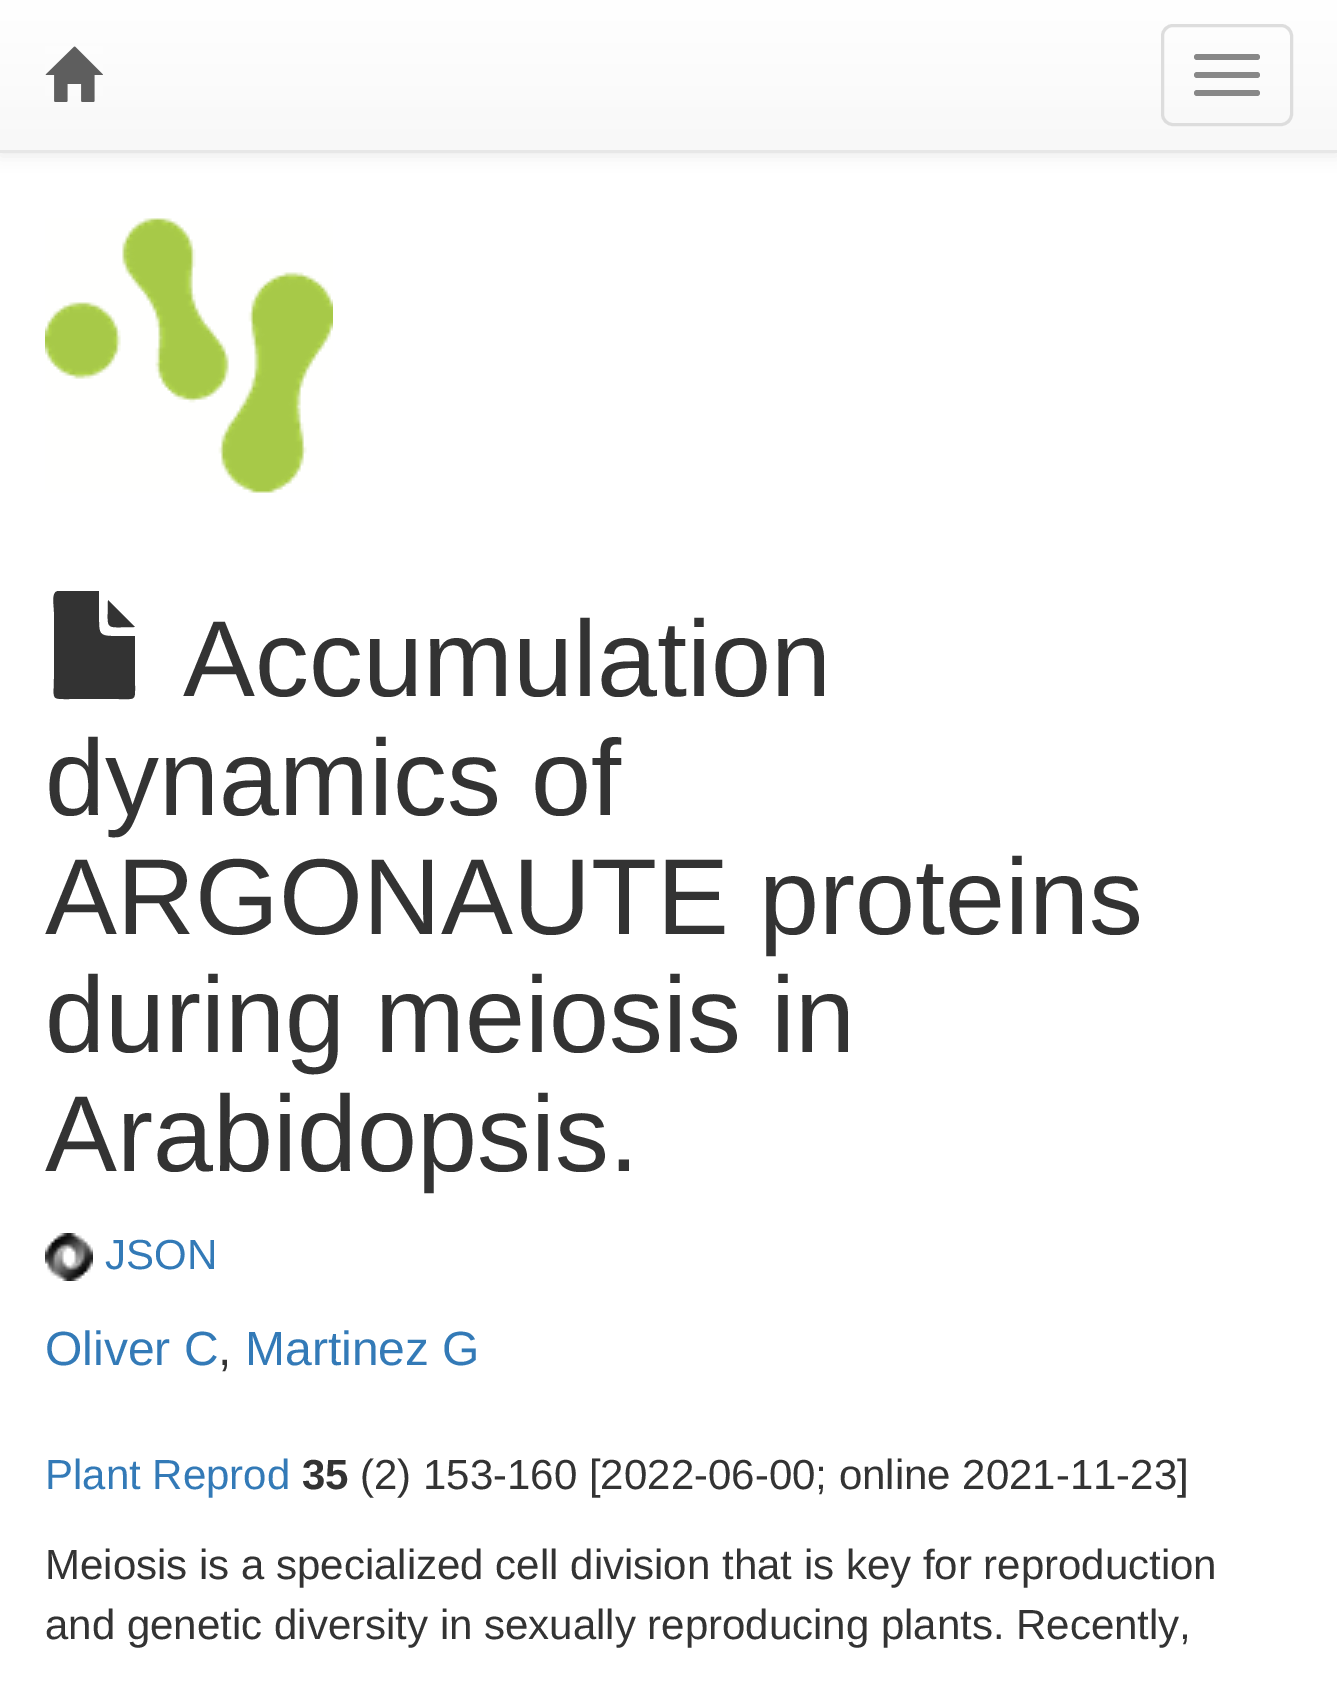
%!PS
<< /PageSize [1337 1683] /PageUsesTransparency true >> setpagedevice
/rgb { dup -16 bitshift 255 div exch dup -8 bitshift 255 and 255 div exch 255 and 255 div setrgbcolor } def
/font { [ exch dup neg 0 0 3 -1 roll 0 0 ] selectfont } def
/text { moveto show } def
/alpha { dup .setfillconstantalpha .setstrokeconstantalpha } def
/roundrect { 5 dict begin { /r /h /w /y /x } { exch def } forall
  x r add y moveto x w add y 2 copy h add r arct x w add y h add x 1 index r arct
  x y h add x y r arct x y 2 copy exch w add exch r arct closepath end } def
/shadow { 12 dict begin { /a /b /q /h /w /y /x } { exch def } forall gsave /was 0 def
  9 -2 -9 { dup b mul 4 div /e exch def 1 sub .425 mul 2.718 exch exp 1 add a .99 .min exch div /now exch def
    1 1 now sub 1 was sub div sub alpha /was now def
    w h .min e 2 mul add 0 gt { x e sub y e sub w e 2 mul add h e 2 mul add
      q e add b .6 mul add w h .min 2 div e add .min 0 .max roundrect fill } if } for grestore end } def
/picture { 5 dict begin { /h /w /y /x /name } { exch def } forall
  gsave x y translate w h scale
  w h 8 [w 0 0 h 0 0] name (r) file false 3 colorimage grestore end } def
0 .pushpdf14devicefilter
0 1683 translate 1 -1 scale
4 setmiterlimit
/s1 { /LiberationSans-Regular 108 font 16#333333 rgb } def
/s2 { /LiberationSans-Regular 42 font 16#337AB7 rgb } def
/s3 { /LiberationSans-Regular 48 font 16#337AB7 rgb } def
/s4 { /LiberationSans-Regular 48 font 16#333333 rgb } def
/s5 { /LiberationSans-Bold 42 font 16#333333 rgb } def
/s6 { /LiberationSans-Regular 42 font 16#333333 rgb } def
16#FFFFFF rgb
0 0 1337 1683 rectfill
16#000000 rgb
0 3 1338 153 0 7.5 0.07 shadow
gsave 0 0 moveto 1337 0 lineto 1337 150 lineto 0 150 lineto closepath clip newpath
<< /ShadingType 2 /ColorSpace /DeviceRGB /Coords [669 0 669 150] /Extend [true true] /Function << /FunctionType 2 /Domain [0 1] /C0 [1 1 1] /C1 [0.973 0.973 0.973] /N 1 >> >> shfill grestore
16#E7E7E7 rgb
0 150 1337 3 rectfill
(pic1.raw) 45 46 58 56 picture
16#DDDDDD rgb
3 setlinewidth
1162.5 25.5 129 99 10.5 roundrect stroke
16#888888 rgb
1194 54 66 6 3 roundrect fill
1194 72 66 6 3 roundrect fill
1194 90 66 6 3 roundrect fill
(pic2.raw) 45 218 288 275 picture
16#333333 rgb
99 591 moveto 99 621 lineto 99 633 100 636 112 636 curveto 135 636 lineto 135 685 lineto 135 701 136 699 118 699 curveto 70 699 lineto 50 699 54 700 54 678 curveto 54 612 lineto 54 605 51 592 58 591 curveto closepath 135 627 moveto 103 627 108 632 108 600 curveto closepath fill
s1
(Accumulation) 183 696 text
(dynamics of) 45 815 text
(ARGONAUTE proteins) 45 934 text
(during meiosis in) 45 1052 text
(Arabidopsis.) 45 1171 text
(pic3.raw) 45 1233 48 48 picture
s2
(JSON) 105 1269 text
s3
(Oliver C) 45 1365 text
s4
(,) 218 1365 text
s3
(Martinez G) 245 1365 text
s2
(Plant Reprod) 45 1489 text
s5
(35) 302 1489 text
s6
(\(2\) 153-160 [2022-06-00; online 2021-11-23]) 360 1489 text
(Meiosis is a specialized cell division that is key for reproduction) 45 1579 text
(and genetic diversity in sexually reproducing plants. Recently,) 45 1639 text
.poppdf14devicefilter showpage
